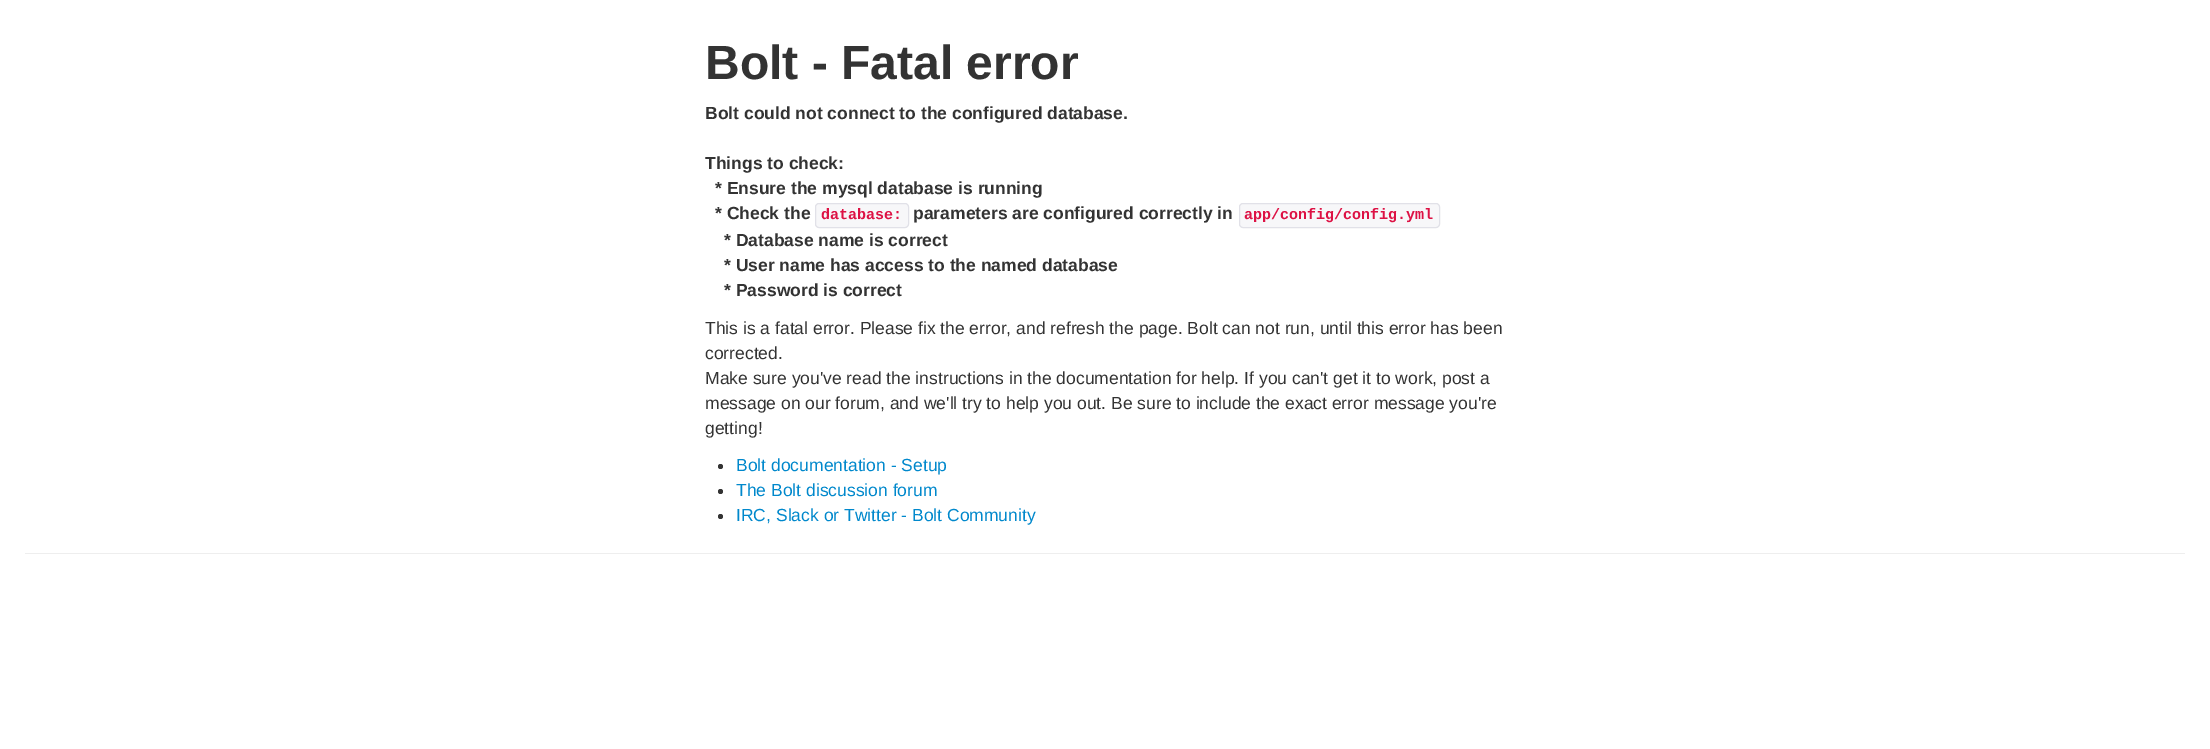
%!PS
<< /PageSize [2210 749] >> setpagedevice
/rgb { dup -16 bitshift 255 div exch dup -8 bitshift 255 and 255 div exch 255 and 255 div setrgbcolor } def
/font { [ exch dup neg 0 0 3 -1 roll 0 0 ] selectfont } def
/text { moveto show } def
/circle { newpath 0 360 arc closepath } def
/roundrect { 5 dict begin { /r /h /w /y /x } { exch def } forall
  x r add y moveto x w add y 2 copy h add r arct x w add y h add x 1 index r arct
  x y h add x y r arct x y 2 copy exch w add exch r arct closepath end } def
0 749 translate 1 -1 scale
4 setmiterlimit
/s1 { /LiberationSans-Bold 48 font 16#333333 rgb } def
/s2 { /LiberationSans-Bold 17.5 font 16#333333 rgb } def
/s3 { /LiberationMono-Bold 15 font 16#DD1144 rgb } def
/s4 { /LiberationSans-Regular 17.5 font 16#333333 rgb } def
/s5 { /LiberationSans-Regular 17.5 font 16#0088CC rgb } def
16#FFFFFF rgb
0 0 2210 749 rectfill
s1
(Bolt - Fatal error) 705 79 text
s2
(Bolt could not connect to the configured database.) 705 119 text
(Things to check:) 705 169 text
(* Ensure the mysql database is running) 715 194 text
(* Check the) 715 219 text
16#F7F7F9 rgb
815.5 203.5 93 24 3.5 roundrect gsave fill grestore
16#E1E1E8 rgb
stroke
s3
(database:) 821 219 text
s2
(parameters are configured correctly in) 913 219 text
16#F7F7F9 rgb
1239.5 203.5 200 24 3.5 roundrect gsave fill grestore
16#E1E1E8 rgb
stroke
s3
(app/config/config.yml) 1244 219 text
s2
(* Database name is correct) 724 246 text
(* User name has access to the named database) 724 271 text
(* Password is correct) 724 296 text
s4
(This is a fatal error. Please fix the error, and refresh the page. Bolt can not run, until this error has been) 705 334 text
(corrected.) 705 359 text
(Make sure you've read the instructions in the documentation for help. If you can't get it to work, post a) 705 384 text
(message on our forum, and we'll try to help you out. Be sure to include the exact error message you're) 705 409 text
(getting!) 705 434 text
720.5 466.5 2.5 circle fill
s5
(Bolt documentation - Setup) 736 471 text
16#333333 rgb
720.5 491.5 2.5 circle fill
s5
(The Bolt discussion forum) 736 496 text
16#333333 rgb
720.5 516.5 2.5 circle fill
s5
(IRC, Slack or Twitter - Bolt Community) 736 521 text
16#EEEEEE rgb
25 553 2160 1 rectfill
showpage
